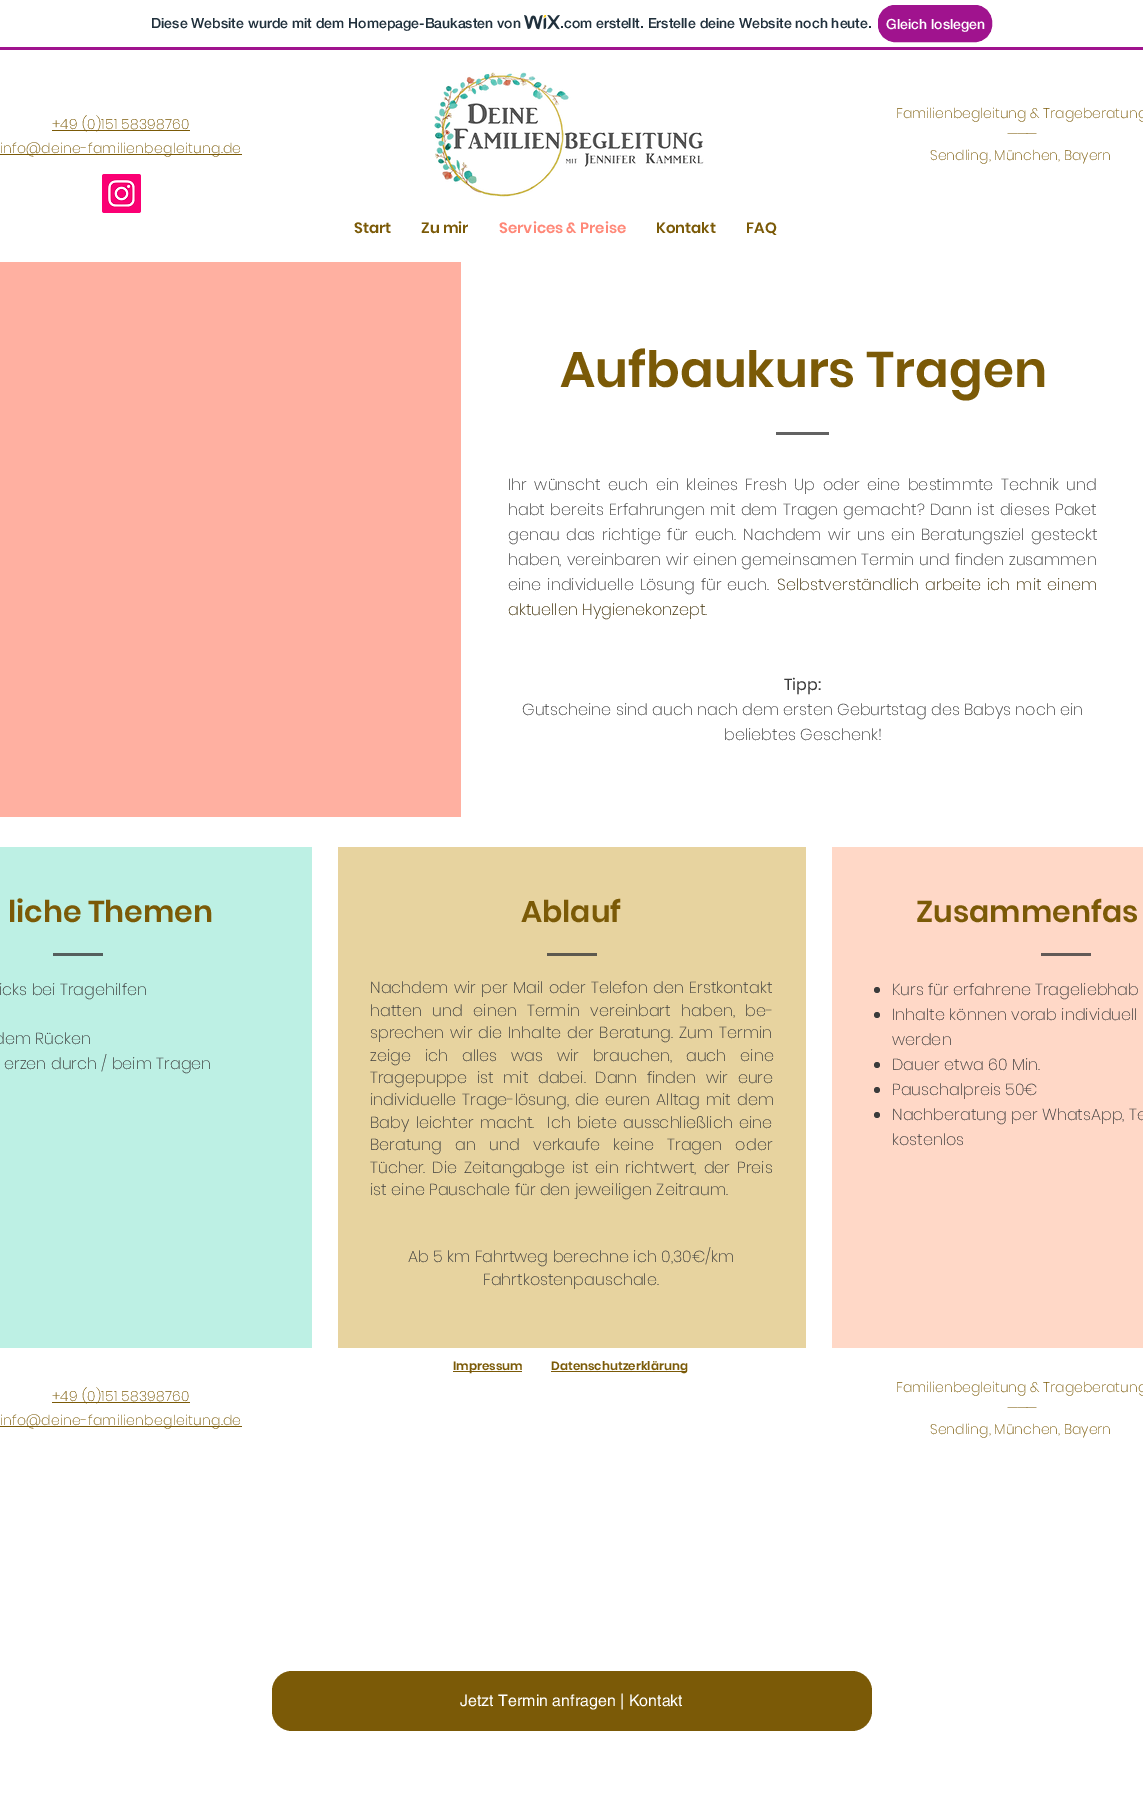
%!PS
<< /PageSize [1143 1801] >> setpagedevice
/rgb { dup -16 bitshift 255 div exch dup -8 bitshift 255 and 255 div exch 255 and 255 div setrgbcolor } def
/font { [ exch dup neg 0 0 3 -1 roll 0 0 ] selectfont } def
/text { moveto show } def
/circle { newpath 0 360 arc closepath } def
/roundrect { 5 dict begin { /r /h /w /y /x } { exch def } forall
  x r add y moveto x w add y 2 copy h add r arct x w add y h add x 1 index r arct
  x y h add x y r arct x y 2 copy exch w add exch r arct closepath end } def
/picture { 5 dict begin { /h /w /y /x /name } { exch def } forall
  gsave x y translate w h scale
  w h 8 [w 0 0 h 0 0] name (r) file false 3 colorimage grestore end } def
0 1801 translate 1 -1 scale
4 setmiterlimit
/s1 { /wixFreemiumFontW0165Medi-Medium 14 font 16#20303C rgb } def
/s2 { /wixFreemiumFontW0165Medi-Medium 14 font 16#FFFFFF rgb } def
/s3 { /Poppins-ExtraLight 14 font 16#7B5A07 rgb } def
/s4 { /Poppins-SemiBold 15 font 16#7B5A07 rgb } def
/s5 { /Poppins-SemiBold 15 font 16#FF8878 rgb } def
/s6 { /Poppins-SemiBold 50 font 16#7B5A07 rgb } def
/s7 { /Poppins-ExtraLight 16 font 16#3D2D04 rgb } def
/s8 { /Poppins-Regular 16 font 16#3B3B3B rgb } def
/s9 { /Poppins-ExtraLight 16 font 16#3B3B3B rgb } def
/s10 { /Poppins-SemiBold 30 font 16#7B5A07 rgb } def
/s11 { /helvetica-Regular 16 font 16#FFFFFF rgb } def
/s12 { /Poppins-SemiBold 12 font 16#7B5A07 rgb } def
16#FFFFFF rgb
0 0 1143 1801 rectfill
16#A0138E rgb
0 47 1143 3 rectfill
s1
(Diese Website wurde mit dem Homepage-Baukasten von) 151 28 text
(pic1.raw) 524 15 36 15 picture
(.com erstellt. Erstelle deine Website noch heute.) 560 28 text
16#A0138E rgb
878.5 5.5 113 36 16.5 roundrect gsave fill grestore
stroke
s2
(Gleich loslegen) 886 29 text
16#7B5A07 rgb
52 130 138 1 rectfill
/Poppins-ExtraLight 14 font
52 129 moveto 0.25 0 (+49 \(0\)151 58398760) ashow
0 154 242 1 rectfill
0 153 moveto 0.25 0 (info@deine-familienbegleitung.de) ashow
(Familienbegleitung & Trageberatung) 896 118 text
/Poppins-ExtraLightItalic 14 font
1007 139 moveto -1.5 0 (———) ashow
s3
(Sendling, München, Bayern) 930 160 text
(pic2.raw) 102 174 39 39 picture
(pic3.raw) 434 72 270 125 picture
s4
(Start) 354 233 text
(Zu mir) 421 233 text
s5
(Services & Preise) 499 233 text
s4
(Kontakt) 656 233 text
(FAQ) 746 233 text
16#FFB0A1 rgb
0 262 461 555 rectfill
s6
(Aufbaukurs Tragen) 560 387 text
16#626262 rgb
776 432 53 3 rectfill
/Poppins-ExtraLight 16 font
16#3B3B3B rgb
508 490 moveto 3.1 0 32 (Ihr wünscht euch ein kleines Fresh Up oder eine bestimmte Technik und) widthshow
508 515 moveto 1 0 32 (habt bereits Erfahrungen mit dem Tragen gemacht? Dann ist dieses Paket) widthshow
508 540 moveto 2.25 0 32 (genau das richtige für euch. Nachdem wir uns ein Beratungsziel gesteckt) widthshow
508 565 moveto 0.5 0 32 (haben, vereinbaren wir einen gemeinsamen Termin und finden zusammen) widthshow
508 590 moveto 1.5 0 32 (eine individuelle Lösung für euch.) widthshow
16#3D2D04 rgb
777 590 moveto 1.5 0 32 (Selbstverständlich arbeite ich mit einem) widthshow
(aktuellen Hygienekonzept.) 508 615 text
s8
(Tipp:) 784 690 text
s9
(Gutscheine sind auch nach dem ersten Geburtstag des Babys noch ein) 522 715 text
(beliebtes Geschenk!) 724 740 text
16#BDF0E4 rgb
0 847 312 501 rectfill
s10
(liche Themen) 8 922 text
16#555F5D rgb
53 953 50 3 rectfill
s9
(icks bei Tragehilfen) -1 995 text
(dem Rücken) -6 1044 text
(erzen durch / beim Tragen) 4 1069 text
16#E7D39F rgb
338 847 468 501 rectfill
s10
(Ablauf) 521 922 text
16#5D594F rgb
547 953 50 3 rectfill
/Poppins-ExtraLight 16 font
16#3B3B3B rgb
370 993 moveto 1 0 32 (Nachdem wir per Mail oder Telefon den Erstkontakt) widthshow
370 1016 moveto 6 0 32 (hatten und einen Termin vereinbart haben, be-) widthshow
370 1038 moveto 1.5 0 32 (sprechen wir die Inhalte der Beratung. Zum Termin) widthshow
370 1061 moveto 9.5 0 32 (zeige ich alles was wir brauchen, auch eine) widthshow
370 1083 moveto 5.25 0 32 (Tragepuppe ist mit dabei. Dann finden wir eure) widthshow
370 1105 moveto 1.5 0 32 (individuelle Trage-lösung, die euren Alltag mit dem) widthshow
370 1128 moveto 2 0 32 (Baby leichter macht.  Ich biete ausschließlich eine) widthshow
370 1150 moveto 9 0 32 (Beratung an und verkaufe keine Tragen oder) widthshow
370 1173 moveto 2.5 0 32 (Tücher. Die Zeitangabge ist ein richtwert, der Preis) widthshow
(ist eine Pauschale für den jeweiligen Zeitraum.) 370 1195 text
(Ab 5 km Fahrtweg berechne ich 0,30€/km) 408 1262 text
(Fahrtkostenpauschale.) 483 1285 text
16#FFD8C7 rgb
832 847 311 501 rectfill
s10
(Zusammenfas) 916 922 text
16#625A57 rgb
1041 953 50 3 rectfill
16#3B3B3B rgb
877 990 3 circle fill
s9
(Kurs für erfahrene Trageliebhab) 892 995 text
877 1015 3 circle fill
(Inhalte können vorab individuell) 892 1020 text
(werden) 892 1045 text
877 1065 3 circle fill
(Dauer etwa 60 Min.) 892 1070 text
877 1090 3 circle fill
(Pauschalpreis 50€) 892 1095 text
877 1115 3 circle fill
(Nachberatung per WhatsApp, Te) 892 1120 text
(kostenlos) 892 1145 text
16#7B5A07 rgb
272 1671 600 60 20 roundrect fill
s11
(Jetzt Termin anfragen | Kontakt) 460 1706 text
16#7B5A07 rgb
453 1371 69 1 rectfill
s12
(Impressum) 453 1370 text
551 1371 136 1 rectfill
(Datenschutzerklärung) 551 1370 text
52 1402 138 1 rectfill
/Poppins-ExtraLight 14 font
52 1401 moveto 0.25 0 (+49 \(0\)151 58398760) ashow
0 1426 242 1 rectfill
0 1425 moveto 0.25 0 (info@deine-familienbegleitung.de) ashow
(Familienbegleitung & Trageberatung) 896 1392 text
/Poppins-ExtraLightItalic 14 font
1007 1413 moveto -1.5 0 (———) ashow
s3
(Sendling, München, Bayern) 930 1434 text
showpage
